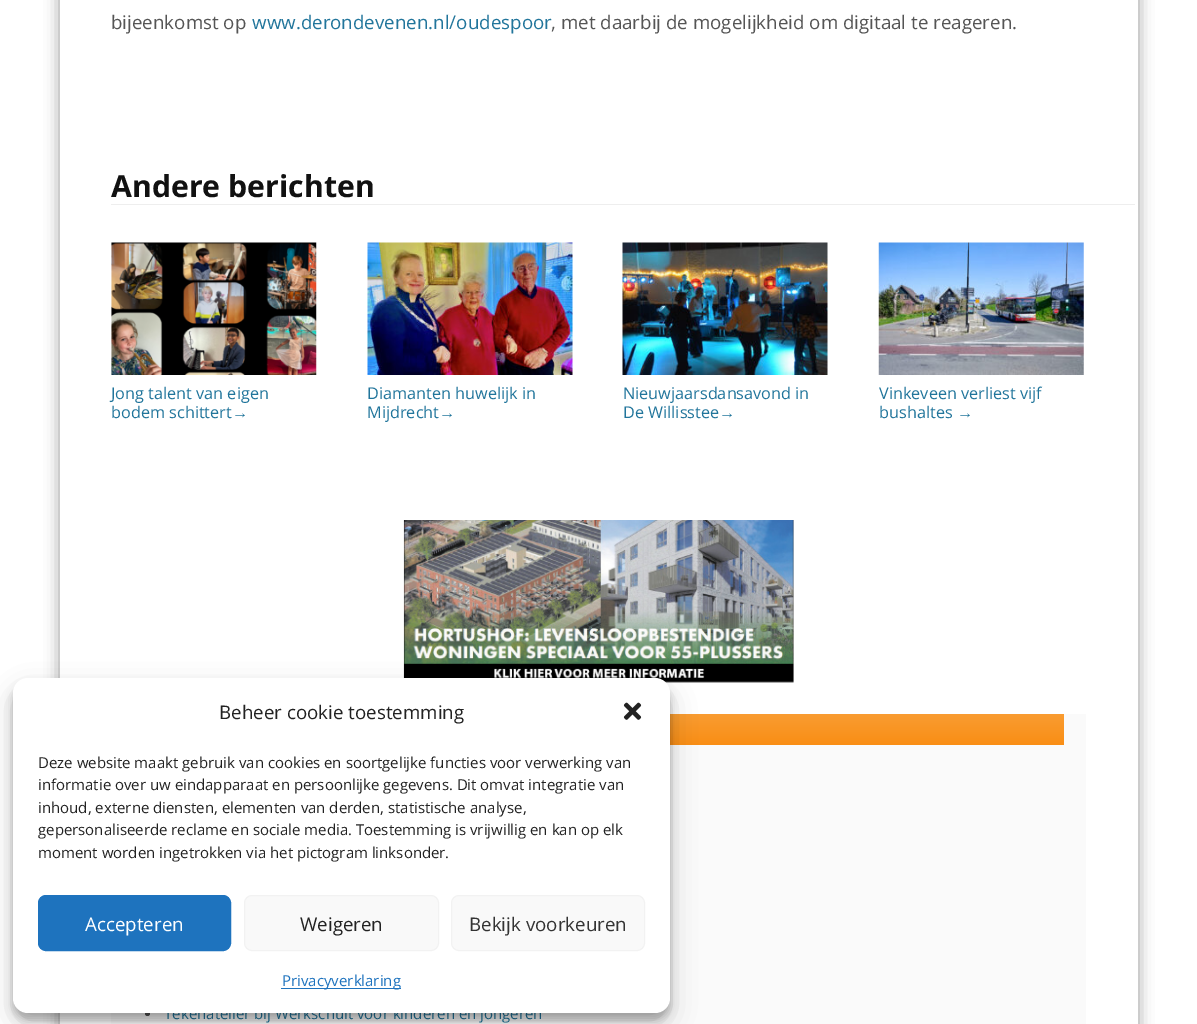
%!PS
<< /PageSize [1197 1024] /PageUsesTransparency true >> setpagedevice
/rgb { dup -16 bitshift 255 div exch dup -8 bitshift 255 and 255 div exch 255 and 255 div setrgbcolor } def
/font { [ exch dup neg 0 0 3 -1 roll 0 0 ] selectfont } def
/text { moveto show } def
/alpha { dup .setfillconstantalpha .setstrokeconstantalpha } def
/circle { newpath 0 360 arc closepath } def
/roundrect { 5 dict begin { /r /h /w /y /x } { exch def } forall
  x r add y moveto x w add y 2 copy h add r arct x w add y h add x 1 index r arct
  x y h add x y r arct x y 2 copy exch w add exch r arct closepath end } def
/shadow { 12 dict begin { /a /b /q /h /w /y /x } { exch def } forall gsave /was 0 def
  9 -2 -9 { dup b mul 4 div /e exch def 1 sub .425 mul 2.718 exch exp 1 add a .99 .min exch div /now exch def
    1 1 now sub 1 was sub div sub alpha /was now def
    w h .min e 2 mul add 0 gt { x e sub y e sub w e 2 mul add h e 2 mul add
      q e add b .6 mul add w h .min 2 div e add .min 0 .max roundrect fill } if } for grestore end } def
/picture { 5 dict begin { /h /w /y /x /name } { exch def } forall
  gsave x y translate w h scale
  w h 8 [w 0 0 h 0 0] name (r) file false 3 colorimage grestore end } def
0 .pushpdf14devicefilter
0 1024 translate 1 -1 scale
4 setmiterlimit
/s1 { /OpenSans-Regular 18.75 font 16#555555 rgb } def
/s2 { /OpenSans-Regular 18.75 font 16#21759B rgb } def
/s3 { /OpenSans-Bold 30.25 font 16#111111 rgb } def
/s4 { /OpenSans-Regular 16.25 font 16#21759B rgb } def
/s5 { /LiberationSans-Regular 16.25 font 16#21759B rgb } def
/s6 { /OpenSans-Regular 15 font 16#21759B rgb } def
/s7 { /OpenSans-Regular 18.75 font 16#222222 rgb } def
/s8 { /OpenSans-Regular 15 font 16#222222 rgb } def
/s9 { /OpenSans-Regular 18.75 font 16#FFFFFF rgb } def
/s10 { /OpenSans-Regular 18.75 font 16#333333 rgb } def
/s11 { /OpenSans-Regular 15 font 16#1E73BE rgb } def
16#FFFFFF rgb
0 0 1197 1024 rectfill
16#000000 rgb
60 -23 1078 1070 0 7.5 0.4 shadow
16#FFFFFF rgb
60 0 1078 1024 rectfill
s1
(bijeenkomst op) 111 29 text
s2
(www.derondevenen.nl/oudespoor) 252 29 text
s1
(, met daarbij de mogelijkheid om digitaal te reageren.) 551 29 text
16#EEEEEE rgb
111 204 1024 1 rectfill
s3
(Andere berichten) 111 197 text
(pic1.raw) 111 242 206 133 picture
s4
(Jong talent van eigen) 111 399 text
(bodem schittert) 111 418 text
s5
(→) 232 418 text
(pic2.raw) 367 242 206 133 picture
s4
(Diamanten huwelijk in) 367 399 text
(Mijdrecht) 367 418 text
s5
(→) 439 418 text
(pic3.raw) 622 242 206 133 picture
s4
(Nieuwjaarsdansavond in) 623 399 text
(De Willisstee) 623 418 text
s5
(→) 719 418 text
(pic4.raw) 878 242 206 133 picture
s4
(Vinkeveen verliest vijf) 879 399 text
(bushaltes) 879 418 text
s5
(→) 957 418 text
(pic5.raw) 403 520 391 163 picture
16#FAFAFA rgb
111 714 975 310 rectfill
gsave 670 714 moveto 1064 714 lineto 1064 745 lineto 670 745 lineto closepath clip newpath
<< /ShadingType 2 /ColorSpace /DeviceRGB /Coords [599 714 599 745] /Extend [true true] /Function << /FunctionType 2 /Domain [0 1] /C0 [0.98 0.612 0.192] /C1 [0.976 0.557 0.082] /N 1 >> >> shfill grestore
16#555555 rgb
147.5 1013.5 2.5 circle fill
s6
(Tekenatelier bij Werkschuit voor kinderen en jongeren) 164 1019 text
16#000000 rgb
13 685 657 335 15 4 0.23 shadow
13 690 657 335 15 12.5 0.19 shadow
16#FFFFFF rgb
13 678 657 335 15 roundrect fill
s7
(Beheer cookie toestemming) 219 719 text
(pic6.raw) 623 702 19 18 picture
s8
(Deze website maakt gebruik van cookies en soortgelijke functies voor verwerking van) 38 768 text
(informatie over uw eindapparaat en persoonlijke gegevens. Dit omvat integratie van) 38 790 text
(inhoud, externe diensten, elementen van derden, statistische analyse,) 38 813 text
(gepersonaliseerde reclame en sociale media. Toestemming is vrijwillig en kan op elk) 38 835 text
(moment worden ingetrokken via het pictogram linksonder.) 38 858 text
16#1E73BE rgb
38.5 895.5 192 55 7.5 roundrect gsave fill grestore
stroke
s9
(Accepteren) 85 931 text
16#F9F9F9 rgb
244.5 895.5 194 55 7.5 roundrect gsave fill grestore
16#F2F2F2 rgb
stroke
s7
(Weigeren) 300 931 text
16#F9F9F9 rgb
451.5 895.5 193 55 7.5 roundrect gsave fill grestore
16#F2F2F2 rgb
stroke
s10
(Bekijk voorkeuren) 469 931 text
16#1E73BE rgb
281 988 120 1 rectfill
s11
(Privacyverklaring) 282 986 text
.poppdf14devicefilter showpage
